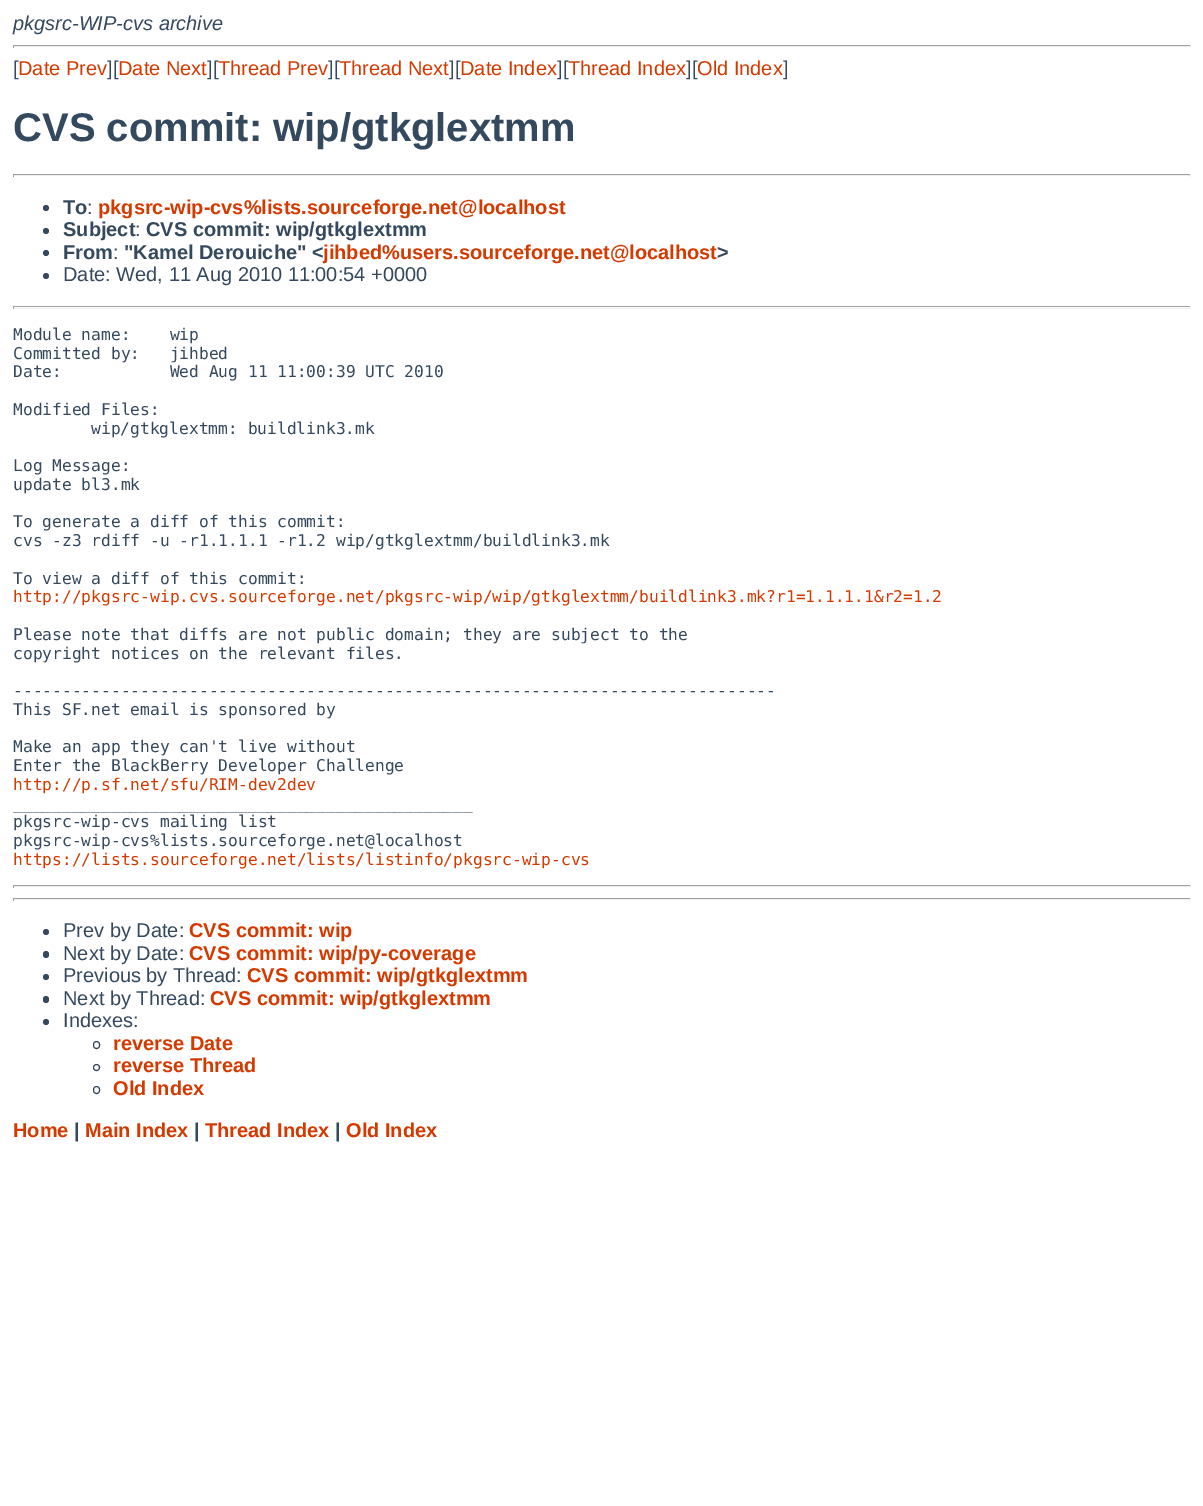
%!PS
<< /PageSize [1203 1506] >> setpagedevice
/rgb { dup -16 bitshift 255 div exch dup -8 bitshift 255 and 255 div exch 255 and 255 div setrgbcolor } def
/font { [ exch dup neg 0 0 3 -1 roll 0 0 ] selectfont } def
/text { moveto show } def
/circle { newpath 0 360 arc closepath } def
/roundrect { 5 dict begin { /r /h /w /y /x } { exch def } forall
  x r add y moveto x w add y 2 copy h add r arct x w add y h add x 1 index r arct
  x y h add x y r arct x y 2 copy exch w add exch r arct closepath end } def
0 1506 translate 1 -1 scale
4 setmiterlimit
/s1 { /LiberationSans-Italic 20 font 16#34495E rgb } def
/s2 { /LiberationSans-Regular 20 font 16#34495E rgb } def
/s3 { /LiberationSans-Regular 20 font 16#D43900 rgb } def
/s4 { /LiberationSans-Bold 40 font 16#34495E rgb } def
/s5 { /LiberationSans-Bold 20 font 16#34495E rgb } def
/s6 { /LiberationSans-Bold 20 font 16#D43900 rgb } def
/s7 { /DejaVuSansMono-Regular 16.25 font 16#34495E rgb } def
/s8 { /DejaVuSansMono-Regular 16.25 font 16#D43900 rgb } def
16#FFFFFF rgb
0 0 1203 1506 rectfill
s1
(pkgsrc-WIP-cvs archive) 13 30 text
16#9F9F9F rgb
13 45 1178 1 rectfill
16#EEEEEE rgb
1190 45 1 3 rectfill
13 46 1178 1 rectfill
16#9F9F9F rgb
13 45 1 3 rectfill
s2
([) 13 75 text
s3
(Date Prev) 18 75 text
s2
(][) 107 75 text
s3
(Date Next) 118 75 text
s2
(][) 207 75 text
s3
(Thread Prev) 218 75 text
s2
(][) 328 75 text
s3
(Thread Next) 339 75 text
s2
(][) 449 75 text
s3
(Date Index) 460 75 text
s2
(][) 557 75 text
s3
(Thread Index) 568 75 text
s2
(][) 686 75 text
s3
(Old Index) 697 75 text
s2
(]) 783 75 text
s4
(CVS commit: wip/gtkglextmm) 13 141 text
16#9F9F9F rgb
13 174 1178 1 rectfill
16#EEEEEE rgb
1190 174 1 3 rectfill
13 175 1178 1 rectfill
16#9F9F9F rgb
13 174 1 3 rectfill
16#34495E rgb
46 208 3 circle fill
s5
(To) 63 214 text
s2
(:) 87 214 text
s6
(pkgsrc-wip-cvs%lists.sourceforge.net@localhost) 98 214 text
16#34495E rgb
46 231 3 circle fill
(Subject) 63 236 text
s2
(:) 135 236 text
s5
(CVS commit: wip/gtkglextmm) 146 236 text
46 253 3 circle fill
(From) 63 259 text
s2
(:) 113 259 text
s5
("Kamel Derouiche" <) 124 259 text
s6
(jihbed%users.sourceforge.net@localhost) 323 259 text
s5
(>) 717 259 text
46 276 3 circle fill
s2
(Date: Wed, 11 Aug 2010 11:00:54 +0000) 63 281 text
16#9F9F9F rgb
13 306 1178 1 rectfill
16#EEEEEE rgb
1190 306 1 3 rectfill
13 308 1178 1 rectfill
16#9F9F9F rgb
13 306 1 3 rectfill
s7
(Module name:    wip) 13 340 text
(Committed by:   jihbed) 13 359 text
(Date:           Wed Aug 11 11:00:39 UTC 2010) 13 377 text
(Modified Files:) 13 415 text
(wip/gtkglextmm: buildlink3.mk) 91 434 text
(Log Message:) 13 471 text
(update bl3.mk) 13 490 text
(To generate a diff of this commit:) 13 527 text
(cvs -z3 rdiff -u -r1.1.1.1 -r1.2 wip/gtkglextmm/buildlink3.mk) 13 546 text
(To view a diff of this commit:) 13 584 text
s8
(http://pkgsrc-wip.cvs.sourceforge.net/pkgsrc-wip/wip/gtkglextmm/buildlink3.mk?r1=1.1.1.1&r2=1.2) 13 602 text
s7
(Please note that diffs are not public domain; they are subject to the) 13 640 text
(copyright notices on the relevant files.) 13 659 text
(------------------------------------------------------------------------------) 13 696 text
(This SF.net email is sponsored by) 13 715 text
(Make an app they can't live without) 13 752 text
(Enter the BlackBerry Developer Challenge) 13 771 text
s8
(http://p.sf.net/sfu/RIM-dev2dev) 13 790 text
s7
(_______________________________________________) 13 809 text
(pkgsrc-wip-cvs mailing list) 13 827 text
(pkgsrc-wip-cvs%lists.sourceforge.net@localhost) 13 846 text
s8
(https://lists.sourceforge.net/lists/listinfo/pkgsrc-wip-cvs) 13 865 text
16#9F9F9F rgb
13 885 1178 1 rectfill
16#EEEEEE rgb
1190 885 1 3 rectfill
13 886 1178 1 rectfill
16#9F9F9F rgb
13 885 1 3 rectfill
13 898 1178 1 rectfill
16#EEEEEE rgb
1190 898 1 3 rectfill
13 899 1178 1 rectfill
16#9F9F9F rgb
13 898 1 3 rectfill
16#34495E rgb
46 932 3 circle fill
s2
(Prev by Date:) 63 937 text
s6
(CVS commit: wip) 189 937 text
16#34495E rgb
43 951 6 7 3 roundrect fill
s2
(Next by Date:) 63 960 text
s6
(CVS commit: wip/py-coverage) 189 960 text
16#34495E rgb
46 977 3 circle fill
s2
(Previous by Thread:) 63 982 text
s6
(CVS commit: wip/gtkglextmm) 247 982 text
16#34495E rgb
43 996 6 7 3 roundrect fill
s2
(Next by Thread:) 63 1005 text
s6
(CVS commit: wip/gtkglextmm) 210 1005 text
16#34495E rgb
46 1022 3 circle fill
s2
(Indexes:) 63 1027 text
93.5 1041.5 6 7 3 roundrect stroke
s6
(reverse Date) 113 1050 text
16#34495E rgb
96.5 1067.5 3 circle stroke
s6
(reverse Thread) 113 1072 text
16#34495E rgb
93.5 1086.5 6 7 3 roundrect stroke
s6
(Old Index) 113 1095 text
(Home) 13 1137 text
s5
(|) 74 1137 text
s6
(Main Index) 85 1137 text
s5
(|) 194 1137 text
s6
(Thread Index) 205 1137 text
s5
(|) 335 1137 text
s6
(Old Index) 346 1137 text
showpage
